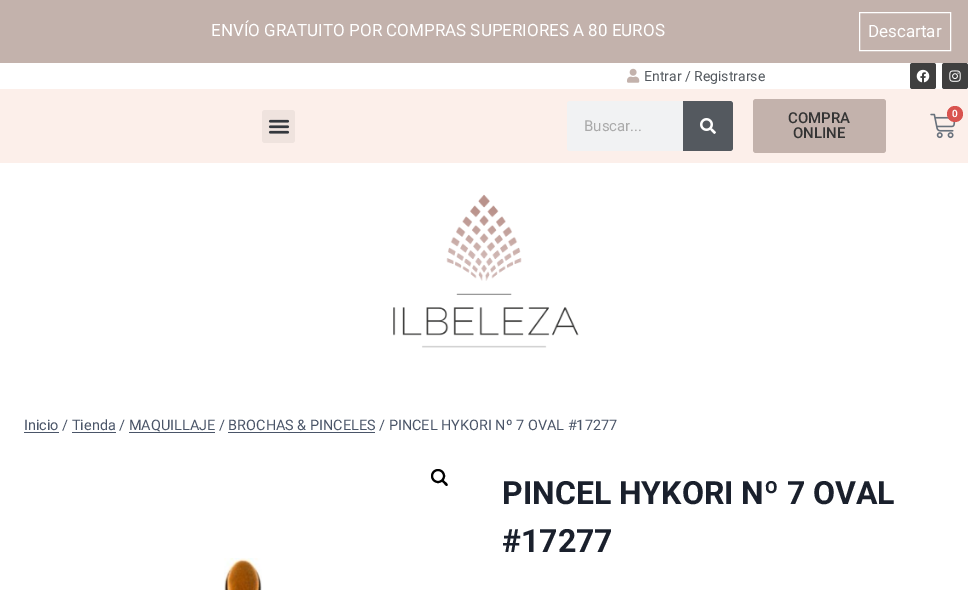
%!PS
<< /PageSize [968 590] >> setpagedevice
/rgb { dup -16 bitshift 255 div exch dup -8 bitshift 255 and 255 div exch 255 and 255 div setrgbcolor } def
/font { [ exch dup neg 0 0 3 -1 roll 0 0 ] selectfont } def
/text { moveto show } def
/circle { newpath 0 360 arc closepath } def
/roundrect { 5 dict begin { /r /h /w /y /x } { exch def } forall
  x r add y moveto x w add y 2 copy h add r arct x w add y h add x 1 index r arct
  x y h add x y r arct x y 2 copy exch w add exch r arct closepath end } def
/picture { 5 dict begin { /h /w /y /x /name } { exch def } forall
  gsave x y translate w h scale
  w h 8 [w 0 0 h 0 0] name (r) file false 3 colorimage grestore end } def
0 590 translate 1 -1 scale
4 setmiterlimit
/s1 { /Roboto-Regular 17 font 16#FFFFFF rgb } def
/s2 { /Roboto-Regular 14 font 16#54595F rgb } def
/s3 { /Roboto-Regular 15 font 16#AAAAAA rgb } def
/s4 { /Roboto-Medium 15 font 16#343434 rgb } def
/s5 { /Roboto-SemiBold 10 font 16#FFFFFF rgb } def
/s6 { /Roboto-Regular 14.45 font 16#4A5568 rgb } def
/s7 { /Roboto-Bold 32 font 16#1A202C rgb } def
16#FFFFFF rgb
0 0 968 590 rectfill
16#C3B2AC rgb
0 0 968 63 rectfill
s1
(ENVÍO GRATUITO POR COMPRAS SUPERIORES A 80 EUROS) 211 36 text
859.5 12.5 91 38 rectstroke
(Descartar) 868 37 text
(pic1.raw) 627 68 13 15 picture
s2
(Entrar / Registrarse) 644 81 text
16#3F3F3F rgb
910 63 26 26 2.5 roundrect fill
(pic2.raw) 916 69 14 14 picture
942 63 26 26 2.5 roundrect fill
(pic3.raw) 949 70 12 12 picture
16#FCEFEA rgb
0 89 968 74 rectfill
16#EFE3DE rgb
262 110 33 33 3 roundrect fill
(pic4.raw) 268 119 22 15 picture
16#F1F2F3 rgb
567 101 166 50 3 roundrect fill
s3
(Buscar...) 584 131 text
16#54595F rgb
683 101 moveto 730 101 lineto 731.5 101 733 102.5 733 104 curveto 733 148 lineto 733 149.5 731.5 151 730 151 curveto 683 151 lineto closepath fill
(pic5.raw) 700 118 16 16 picture
16#C3B2AC rgb
753 99 133 54 3 roundrect fill
s4
(COMPRA) 788 123 text
(ONLINE) 793 138 text
(pic6.raw) 930 113 26 26 picture
16#D9534F rgb
955 114 8 circle fill
s5
(0) 952 117 text
(pic7.raw) 393 194 186 154 picture
s6
(Inicio / Tienda / MAQUILLAJE / BROCHAS & PINCELES / PINCEL HYKORI Nº 7 OVAL #17277) 24 430 text
24 432 35 1 rectfill
72 432 44 1 rectfill
129 432 86 1 rectfill
228 432 147 1 rectfill
16#000000 rgb
2 setlinewidth
438 476 6 circle stroke
442 480 moveto 443 479 444.5 481.5 445.5 482 curveto 446 482.5 448.5 484.5 447.5 485.5 curveto 446 487 444.5 484 444 483.5 curveto 443.5 483 440.5 481 442 480 curveto closepath fill
(pic8.raw) 224 558 38 32 picture
s7
(PINCEL HYKORI Nº 7 OVAL) 502 504 text
(#17277) 502 552 text
showpage
